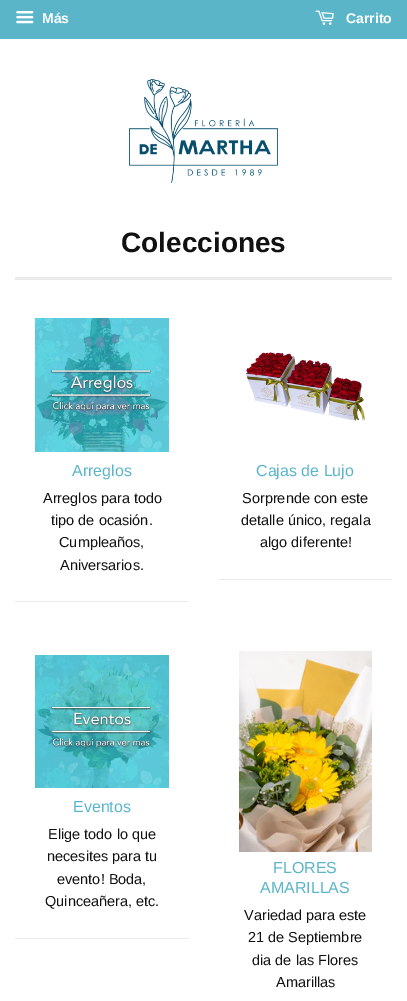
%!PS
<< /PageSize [407 1001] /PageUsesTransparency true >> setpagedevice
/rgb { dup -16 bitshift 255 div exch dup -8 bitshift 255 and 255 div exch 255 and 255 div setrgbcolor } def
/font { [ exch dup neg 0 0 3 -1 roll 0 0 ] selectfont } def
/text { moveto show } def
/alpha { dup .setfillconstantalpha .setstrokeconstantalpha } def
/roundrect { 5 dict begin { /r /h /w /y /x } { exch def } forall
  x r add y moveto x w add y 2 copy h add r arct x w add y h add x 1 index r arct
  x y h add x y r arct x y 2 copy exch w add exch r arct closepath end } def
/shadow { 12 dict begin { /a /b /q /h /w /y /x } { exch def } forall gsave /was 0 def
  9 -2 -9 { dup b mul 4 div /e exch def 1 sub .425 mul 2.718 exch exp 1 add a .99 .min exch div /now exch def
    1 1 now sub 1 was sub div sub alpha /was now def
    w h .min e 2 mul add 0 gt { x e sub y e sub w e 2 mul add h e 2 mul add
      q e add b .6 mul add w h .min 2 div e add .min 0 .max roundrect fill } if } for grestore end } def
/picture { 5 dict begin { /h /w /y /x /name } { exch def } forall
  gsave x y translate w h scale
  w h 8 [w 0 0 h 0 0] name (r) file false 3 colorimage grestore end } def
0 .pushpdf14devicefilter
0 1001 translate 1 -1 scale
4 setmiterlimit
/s1 { /LiberationSans-Bold 14 font 16#FFFFFF rgb } def
/s2 { /LiberationSans-Bold 28 font 16#111111 rgb } def
/s3 { /LiberationSans-Regular 16 font 16#5AB5C9 rgb } def
/s4 { /LiberationSans-Regular 14.5 font 16#111111 rgb } def
16#FFFFFF rgb
0 0 407 1001 rectfill
16#5AB5C9 rgb
0 0 407 39 rectfill
(pic1.raw) 16 11 18 13 picture
s1
(Más) 42 23 text
(pic2.raw) 315 10 19 15 picture
(Carrito) 346 23 text
(pic3.raw) 129 79 149 104 picture
16#EAEAEA rgb
15 277 377 3 rectfill
s2
(Colecciones) 121 252 text
gsave
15 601 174 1 rectclip
16#000000 rgb
15 296 174 306 0 0.5 0.1 shadow
grestore
(pic4.raw) 35 318 134 134 picture
s3
(Arreglos) 72 476 text
s4
(Arreglos para todo) 43 503 text
(tipo de ocasión.) 51 525 text
(Cumpleaños,) 59 547 text
(Aniversarios.) 60 570 text
gsave
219 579 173 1 rectclip
16#000000 rgb
219 296 173 284 0 0.5 0.1 shadow
grestore
(pic5.raw) 245 352 120 69 picture
s3
(Cajas de Lujo) 256 476 text
s4
(Sorprende con este) 242 503 text
(detalle único, regala) 241 525 text
(algo diferente!) 260 547 text
gsave
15 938 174 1 rectclip
16#000000 rgb
15 632 174 307 0 0.5 0.1 shadow
grestore
(pic6.raw) 35 655 134 133 picture
s3
(Eventos) 73 812 text
s4
(Elige todo lo que) 48 839 text
(necesites para tu) 47 861 text
(evento! Boda,) 57 884 text
(Quinceañera, etc.) 45 906 text
(pic7.raw) 239 651 133 201 picture
s3
(FLORES) 273 873 text
(AMARILLAS) 260 893 text
s4
(Variedad para este) 244 920 text
(21 de Septiembre) 248 942 text
(dia de las Flores) 252 965 text
(Amarillas) 276 987 text
.poppdf14devicefilter showpage
